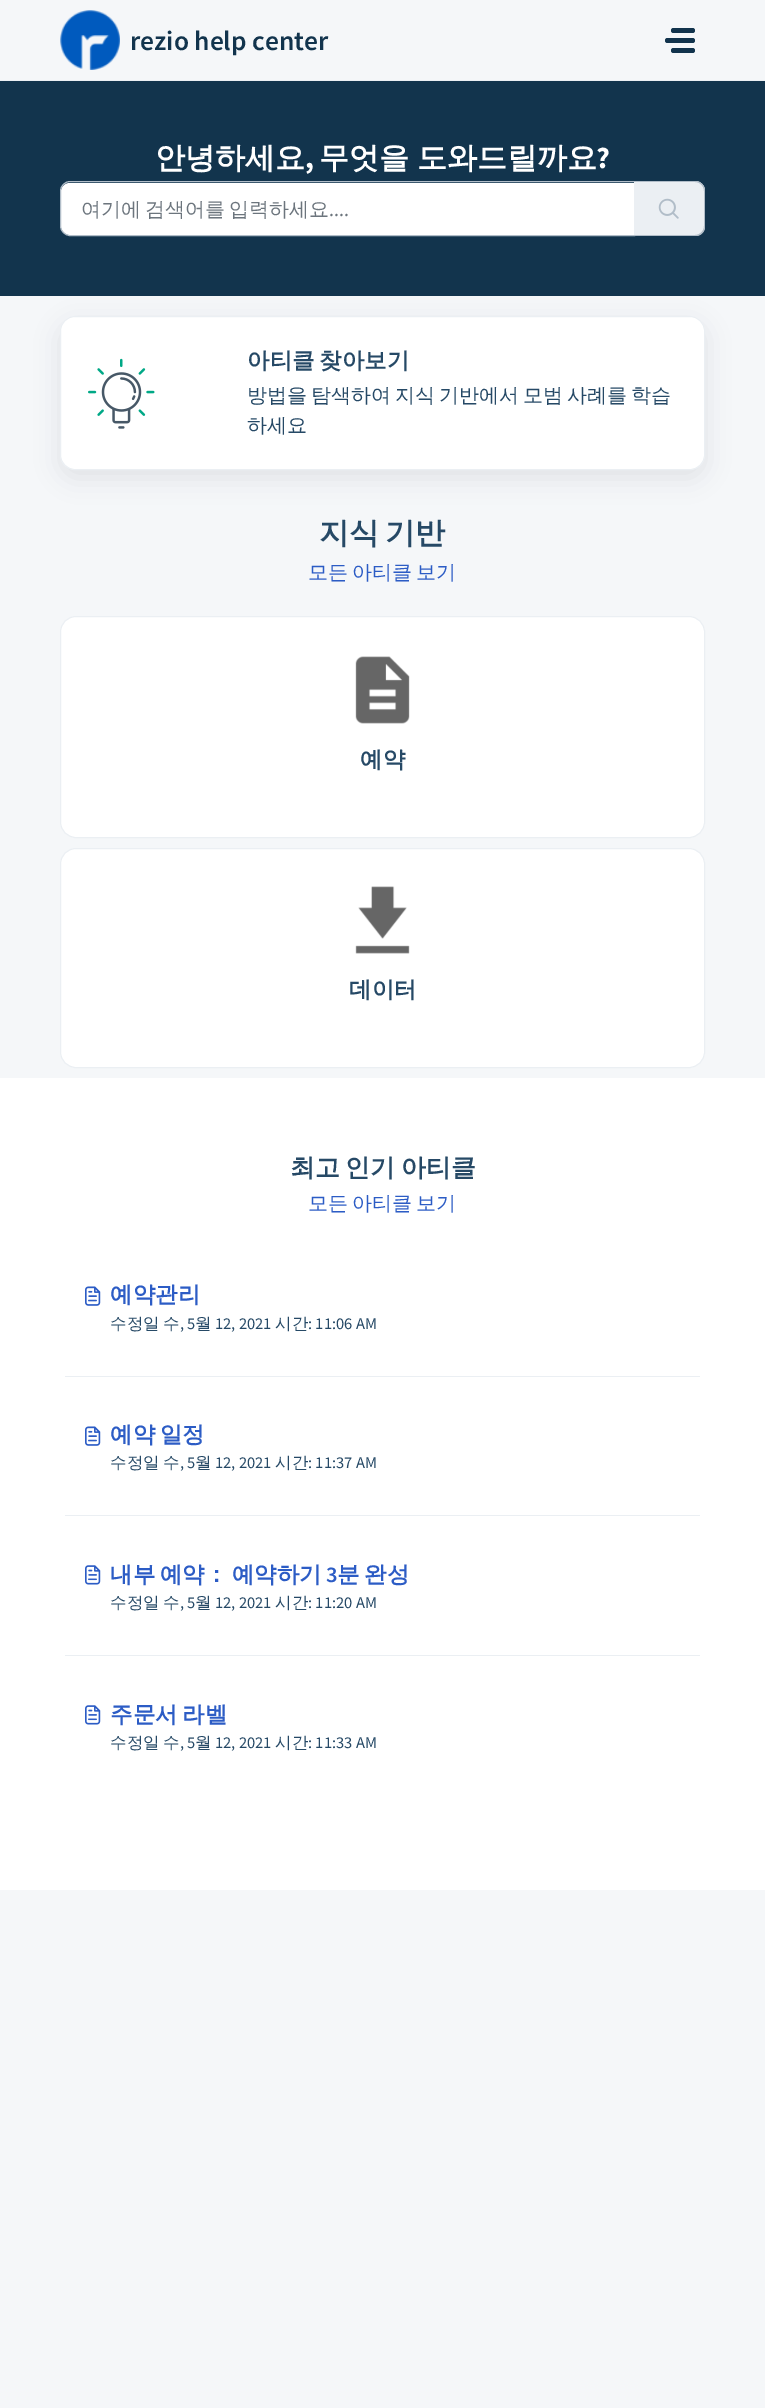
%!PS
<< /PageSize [765 2408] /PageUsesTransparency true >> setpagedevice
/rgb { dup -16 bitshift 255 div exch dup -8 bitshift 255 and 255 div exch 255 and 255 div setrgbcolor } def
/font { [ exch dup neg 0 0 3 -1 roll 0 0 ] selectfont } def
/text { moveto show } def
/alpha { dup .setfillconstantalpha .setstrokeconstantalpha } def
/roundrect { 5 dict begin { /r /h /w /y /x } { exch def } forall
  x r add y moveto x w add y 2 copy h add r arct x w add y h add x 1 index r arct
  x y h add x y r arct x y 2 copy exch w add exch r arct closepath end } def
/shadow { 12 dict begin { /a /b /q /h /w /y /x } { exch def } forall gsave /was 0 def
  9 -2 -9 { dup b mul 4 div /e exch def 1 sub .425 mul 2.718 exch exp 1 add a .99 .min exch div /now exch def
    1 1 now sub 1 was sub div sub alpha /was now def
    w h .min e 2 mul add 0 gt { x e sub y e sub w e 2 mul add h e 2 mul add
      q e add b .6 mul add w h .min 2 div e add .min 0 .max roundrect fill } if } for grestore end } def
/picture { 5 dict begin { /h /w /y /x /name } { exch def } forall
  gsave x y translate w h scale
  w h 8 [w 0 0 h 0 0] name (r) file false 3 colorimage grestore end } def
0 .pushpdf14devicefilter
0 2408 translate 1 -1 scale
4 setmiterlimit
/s1 { /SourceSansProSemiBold-SemiBold 27.5 font 16#12344D rgb } def
/s2 { /WenQuanYiZenHei-Bold 30 font 16#FFFFFF rgb } def
/s3 { /SourceSansPro-Bold 30 font 16#FFFFFF rgb } def
/s4 { /SourceSansPro-Regular 20 font 16#6C757D rgb } def
/s5 { /WenQuanYiZenHei-Medium 20 font 16#264966 rgb } def
/s6 { /WenQuanYiZenHei-Bold 22.5 font 16#264966 rgb } def
/s7 { /WenQuanYiZenHei-Bold 22.5 font 16#2C5CC5 rgb } def
/s8 { /WenQuanYiZenHei-Medium 16.5 font 16#264966 rgb } def
/s9 { /SourceSansPro-Regular 16.5 font 16#264966 rgb } def
/s10 { /SourceSansProSemiBold-SemiBold 22.5 font 16#2C5CC5 rgb } def
16#F5F7F9 rgb
0 0 765 2408 rectfill
16#EBEFF3 rgb
0 80 765 1 rectfill
(pic1.raw) 60 10 60 60 picture
s1
(rezio help center) 130 50 text
671 28 24 5 2.5 roundrect fill
665 38 30 5 2.5 roundrect fill
671 48 24 5 2.5 roundrect fill
0 81 765 215 rectfill
s2
(안녕하세요) 155 168 text
s3
(,) 305 168 text
/WenQuanYiZenHei-Bold 30 font
319 168 moveto -1 0 32 (무엇을 도와드릴까요) widthshow
s3
(?) 596 168 text
70 183 moveto 634 183 lineto 634 235 lineto 70 235 lineto 65 235 61 231 61 226 curveto 61 192 lineto 61 187 65 183 70 183 curveto closepath fill
16#B1BDC8 rgb
70 181.5 moveto 634.5 181.5 lineto 634.5 235.5 lineto 70 235.5 lineto 65 235.5 60.5 231 60.5 226 curveto 60.5 191 lineto 60.5 186 65 181.5 70 181.5 curveto closepath stroke
/WenQuanYiZenHei-Medium 20 font
16#6C757D rgb
81 216 moveto -2 0 32 (여기에 검색어를 입력하세요) widthshow
s4
(....) 329 216 text
16#EBEFF3 rgb
634 181 moveto 695 181 lineto 700.5 181 705 185.5 705 191 curveto 705 226 lineto 705 231.5 700.5 236 695 236 curveto 634 236 lineto closepath fill
16#B1BDC8 rgb
634 181 moveto 695 181 lineto 701 181 705 186 705 191 curveto 705 226 lineto 705 232 701 236 695 236 curveto 634 236 lineto closepath 634 182 moveto 695 182 lineto 700 182 704 186 704 191 curveto 704 226 lineto 704 231 700 235 695 235 curveto 634 235 lineto closepath eofill
(pic2.raw) 658 198 21 21 picture
16#27313A rgb
60 324 645 154 15 12 0.1 shadow
16#FFFFFF rgb
60.5 316.5 644 153 14.5 roundrect gsave fill grestore
16#EBEFF3 rgb
stroke
(pic3.raw) 88 358 67 71 picture
/WenQuanYiZenHei-Bold 22.5 font
16#264966 rgb
247 368 moveto -2 0 32 (아티클 찾아보기) widthshow
/WenQuanYiZenHei-Medium 20 font
247 402 moveto -2 0 32 (방법을 탐색하여 지식 기반에서 모범 사례를 학습) widthshow
(하세요) 247 432 text
/WenQuanYiZenHei-Bold 30 font
319 543 moveto -3 0 32 (지식 기반) widthshow
/WenQuanYiZenHei-Medium 20 font
16#2C5CC5 rgb
308 579 moveto -2 0 32 (모든 아티클 보기) widthshow
16#FFFFFF rgb
60.5 616.5 644 221 15.5 roundrect gsave fill grestore
16#EBEFF3 rgb
stroke
(pic4.raw) 355 656 55 68 picture
s6
(예약) 360 767 text
16#FFFFFF rgb
60.5 848.5 644 219 15.5 roundrect gsave fill grestore
16#EBEFF3 rgb
stroke
(pic5.raw) 355 886 55 68 picture
s6
(데이터) 349 997 text
16#FFFFFF rgb
0 1078 765 812 rectfill
/WenQuanYiZenHei-Bold 25 font
16#264966 rgb
290 1176 moveto -2 0 32 (최고 인기 아티클) widthshow
/WenQuanYiZenHei-Medium 20 font
16#2C5CC5 rgb
308 1210 moveto -2 0 32 (모든 아티클 보기) widthshow
16#EBEFF3 rgb
65 1376 635 1 rectfill
(pic6.raw) 85 1286 16 20 picture
s7
(예약관리) 110 1302 text
s8
(수정일) 110 1329 text
(수) 163 1329 text
s9
(, 5) 180 1329 text
s8
(월) 195 1329 text
s9
(12, 2021) 215 1329 text
s8
(시간) 275 1329 text
s9
(: 11:06 AM) 308 1329 text
16#EBEFF3 rgb
65 1515 635 1 rectfill
(pic6.raw) 85 1426 16 20 picture
/WenQuanYiZenHei-Bold 22.5 font
16#2C5CC5 rgb
110 1442 moveto -2 0 32 (예약 일정) widthshow
s8
(수정일) 110 1468 text
(수) 163 1468 text
s9
(, 5) 180 1468 text
s8
(월) 195 1468 text
s9
(12, 2021) 215 1468 text
s8
(시간) 275 1468 text
s9
(: 11:37 AM) 308 1468 text
16#EBEFF3 rgb
65 1655 635 1 rectfill
(pic7.raw) 85 1565 16 20 picture
/WenQuanYiZenHei-Bold 22.5 font
16#2C5CC5 rgb
110 1582 moveto -2 0 32 (내부 예약： 예약하기) widthshow
s10
(3) 326 1582 text
/WenQuanYiZenHei-Bold 22.5 font
337 1582 moveto -2 0 32 (분 완성) widthshow
s8
(수정일) 110 1608 text
(수) 163 1608 text
s9
(, 5) 180 1608 text
s8
(월) 195 1608 text
s9
(12, 2021) 215 1608 text
s8
(시간) 275 1608 text
s9
(: 11:20 AM) 308 1608 text
(pic7.raw) 85 1705 16 20 picture
/WenQuanYiZenHei-Bold 22.5 font
16#2C5CC5 rgb
110 1722 moveto -2 0 32 (주문서 라벨) widthshow
s8
(수정일) 110 1748 text
(수) 163 1748 text
s9
(, 5) 180 1748 text
s8
(월) 195 1748 text
s9
(12, 2021) 215 1748 text
s8
(시간) 275 1748 text
s9
(: 11:33 AM) 308 1748 text
.poppdf14devicefilter showpage
